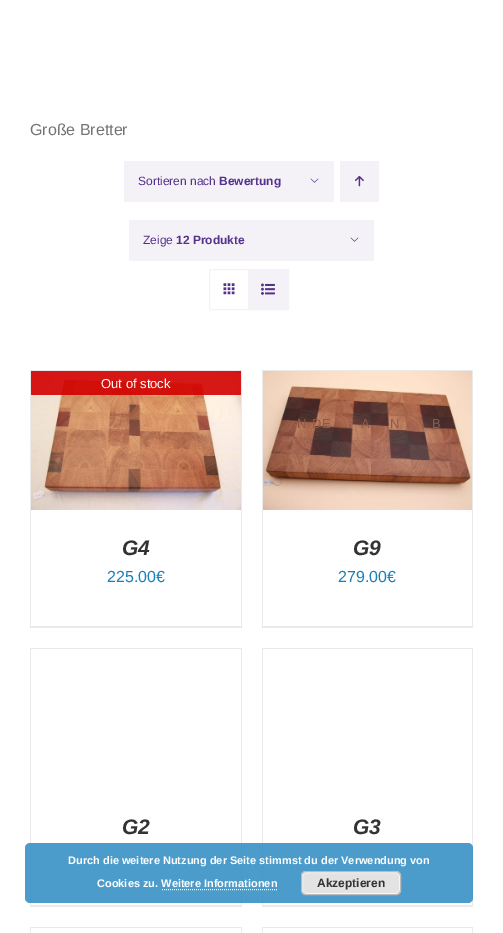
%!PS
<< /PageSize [503 933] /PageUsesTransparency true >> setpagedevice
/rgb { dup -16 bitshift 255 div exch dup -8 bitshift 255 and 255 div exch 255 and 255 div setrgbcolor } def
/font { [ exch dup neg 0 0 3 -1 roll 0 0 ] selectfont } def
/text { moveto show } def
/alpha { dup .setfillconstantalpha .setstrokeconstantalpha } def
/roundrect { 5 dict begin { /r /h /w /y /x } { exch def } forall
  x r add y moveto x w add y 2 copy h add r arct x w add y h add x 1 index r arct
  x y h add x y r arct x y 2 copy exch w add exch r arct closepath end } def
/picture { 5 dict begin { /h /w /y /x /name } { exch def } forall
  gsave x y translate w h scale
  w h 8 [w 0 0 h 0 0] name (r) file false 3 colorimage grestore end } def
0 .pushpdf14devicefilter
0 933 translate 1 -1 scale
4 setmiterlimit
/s1 { /LiberationSans-Regular 16 font 16#747474 rgb } def
/s2 { /LiberationSans-Regular 12 font 16#55328B rgb } def
/s3 { /LiberationSans-Bold 12 font 16#55328B rgb } def
/s4 { /LiberationSans-Regular 13 font 16#FFFFFF rgb } def
/s5 { /LiberationSans-BoldItalic 21 font 16#333333 rgb } def
/s6 { /LiberationSans-Regular 16 font 16#1A80B6 rgb } def
/s7 { /LiberationSans-Bold 11 font 16#FFFFFF rgb } def
/s8 { /LiberationSans-Bold 12 font 16#333333 rgb } def
16#FFFFFF rgb
0 0 503 933 rectfill
s1
(Große Bretter) 30 135 text
16#F4F2F7 rgb
124 161 210 41 rectfill
s2
(Sortieren nach) 138 185 text
s3
(Bewertung) 219 185 text
(pic1.raw) 310 178 9 5 picture
16#F4F2F7 rgb
340 161 39 41 rectfill
(pic2.raw) 355 175 9 12 picture
129 220 245 41 rectfill
s2
(Zeige) 143 244 text
s3
(12 Produkte) 176 244 text
(pic1.raw) 350 237 9 5 picture
16#F4F2F7 rgb
209.5 269.5 79 40 rectstroke
248 270 40 39 rectfill
(pic3.raw) 223 283 12 12 picture
(pic4.raw) 261 283 14 12 picture
16#EBEAEA rgb
30 370 212 1 rectfill
241 370 1 258 rectfill
30 626 212 2 rectfill
30 370 1 258 rectfill
(pic5.raw) 31 371 210 139 picture
0.9 alpha
16#D20000 rgb
31 371 210 24 rectfill
1 alpha
s4
(Out of stock) 101 388 text
s5
(G4) 122 555 text
s6
(225.00€) 107 582 text
16#EBEAEA rgb
262 370 211 1 rectfill
472 370 1 258 rectfill
262 626 211 2 rectfill
262 370 1 258 rectfill
(pic6.raw) 263 371 209 139 picture
/LiberationSans-Regular 13 font
16#8C5948 rgb
297 428 moveto 1 0 (N DE) ashow
361 428 moveto 1 0 (A) ashow
390 428 moveto 1 0 (N) ashow
432 428 moveto 1 0 (B) ashow
s5
(G9) 353 555 text
s6
(279.00€) 338 582 text
16#EBEAEA rgb
30 648 212 1 rectfill
241 648 1 259 rectfill
30 905 212 2 rectfill
30 648 1 259 rectfill
s5
(G2) 122 834 text
16#EBEAEA rgb
262 648 211 1 rectfill
472 648 1 259 rectfill
262 905 211 2 rectfill
262 648 1 259 rectfill
s5
(G3) 353 834 text
16#EBEAEA rgb
30 927 212 1 rectfill
241 927 1 6 rectfill
30 927 1 6 rectfill
262 927 211 1 rectfill
472 927 1 6 rectfill
262 927 1 6 rectfill
0.85 alpha
16#2C8BC1 rgb
25 843 448 60 5 roundrect fill
1 alpha
s7
(Durch die weitere Nutzung der Seite stimmst du der Verwendung von) 68 864 text
(Cookies zu. Weitere Informationen) 97 887 text
16#E3E3E3 rgb
301 871 100 24 5 roundrect fill
16#F6F6F6 rgb
302.5 872.5 97 21 3.5 roundrect stroke
16#BBBBBB rgb
301.5 871.5 99 23 4.5 roundrect stroke
s8
(Akzeptieren) 317 887 text
16#FFFFFF rgb
[1 1] 0 setdash
162 889.5 moveto 278 889.5 lineto stroke
.poppdf14devicefilter showpage
